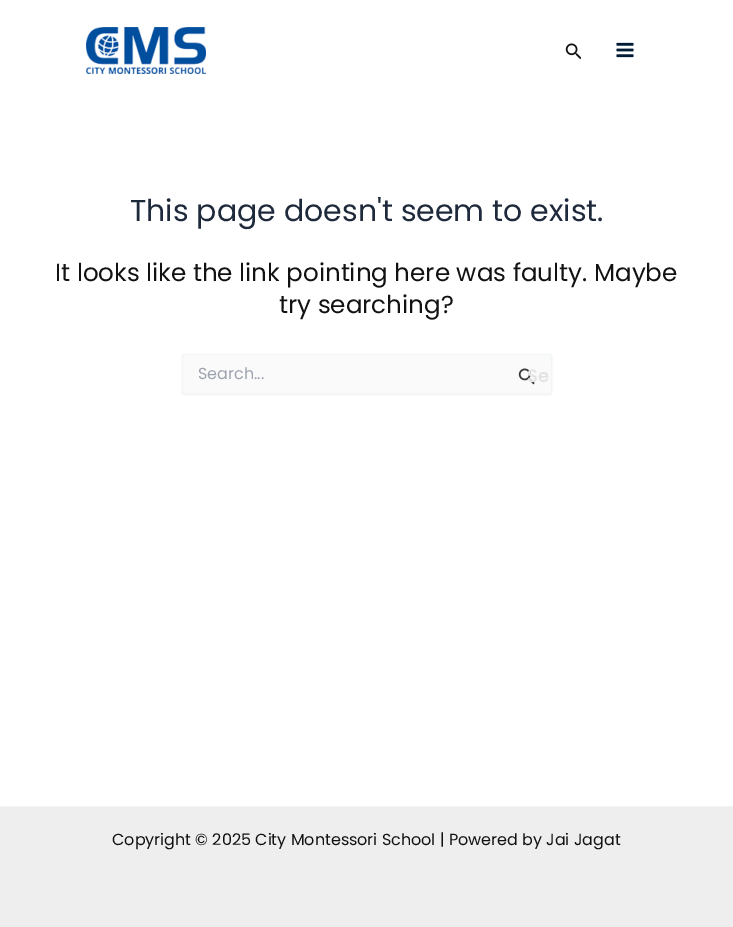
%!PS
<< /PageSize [733 927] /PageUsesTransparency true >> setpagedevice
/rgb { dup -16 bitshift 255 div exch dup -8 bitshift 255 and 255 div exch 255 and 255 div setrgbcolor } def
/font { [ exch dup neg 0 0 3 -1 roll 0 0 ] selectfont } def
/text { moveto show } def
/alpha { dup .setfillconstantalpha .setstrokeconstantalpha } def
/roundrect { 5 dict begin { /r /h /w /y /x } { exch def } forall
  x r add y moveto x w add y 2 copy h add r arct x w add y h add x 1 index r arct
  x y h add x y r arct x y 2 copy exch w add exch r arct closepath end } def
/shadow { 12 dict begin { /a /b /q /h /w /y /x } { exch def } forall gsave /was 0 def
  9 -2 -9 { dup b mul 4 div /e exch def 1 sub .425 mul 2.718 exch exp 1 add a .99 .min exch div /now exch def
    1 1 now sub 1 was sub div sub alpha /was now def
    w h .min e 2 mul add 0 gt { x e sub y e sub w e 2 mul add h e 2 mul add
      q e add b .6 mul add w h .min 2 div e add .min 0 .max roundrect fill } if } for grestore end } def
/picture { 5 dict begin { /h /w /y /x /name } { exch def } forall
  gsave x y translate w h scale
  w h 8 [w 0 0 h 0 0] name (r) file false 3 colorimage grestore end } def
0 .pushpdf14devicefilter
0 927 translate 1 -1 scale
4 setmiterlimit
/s1 { /Poppins-Regular 30 font 16#1E293B rgb } def
/s2 { /Poppins-Regular 24.6 font 16#121212 rgb } def
/s3 { /Poppins-Regular 16 font 16#9CA3AF rgb } def
/s4 { /Poppins-SemiBold 18 font 16#E4E4E5 rgb } def
/s5 { /Poppins-Regular 16 font 16#121212 rgb } def
16#FFFFFF rgb
0 0 733 927 rectfill
(pic1.raw) 86 27 120 47 picture
(pic2.raw) 565 43 16 17 picture
(pic3.raw) 616 42 18 16 picture
s1
(This page doesn't seem to exist.) 130 221 text
s2
(It looks like the link pointing here was faulty. Maybe) 55 281 text
(try searching?) 279 313 text
16#000000 rgb
182 355 370 40 2 1 0.05 shadow
16#FAFAFA rgb
182.5 354.5 369 39 1.5 roundrect gsave fill grestore
16#F2F5F7 rgb
stroke
s3
(Search...) 198 379 text
(pic4.raw) 518 368 17 17 picture
s4
(Se) 527 382 text
16#EEEEEE rgb
0 807 733 120 rectfill
16#F2F5F7 rgb
0 806 733 1 rectfill
s5
(Copyright © 2025 City Montessori School | Powered by Jai Jagat) 112 845 text
.poppdf14devicefilter showpage
